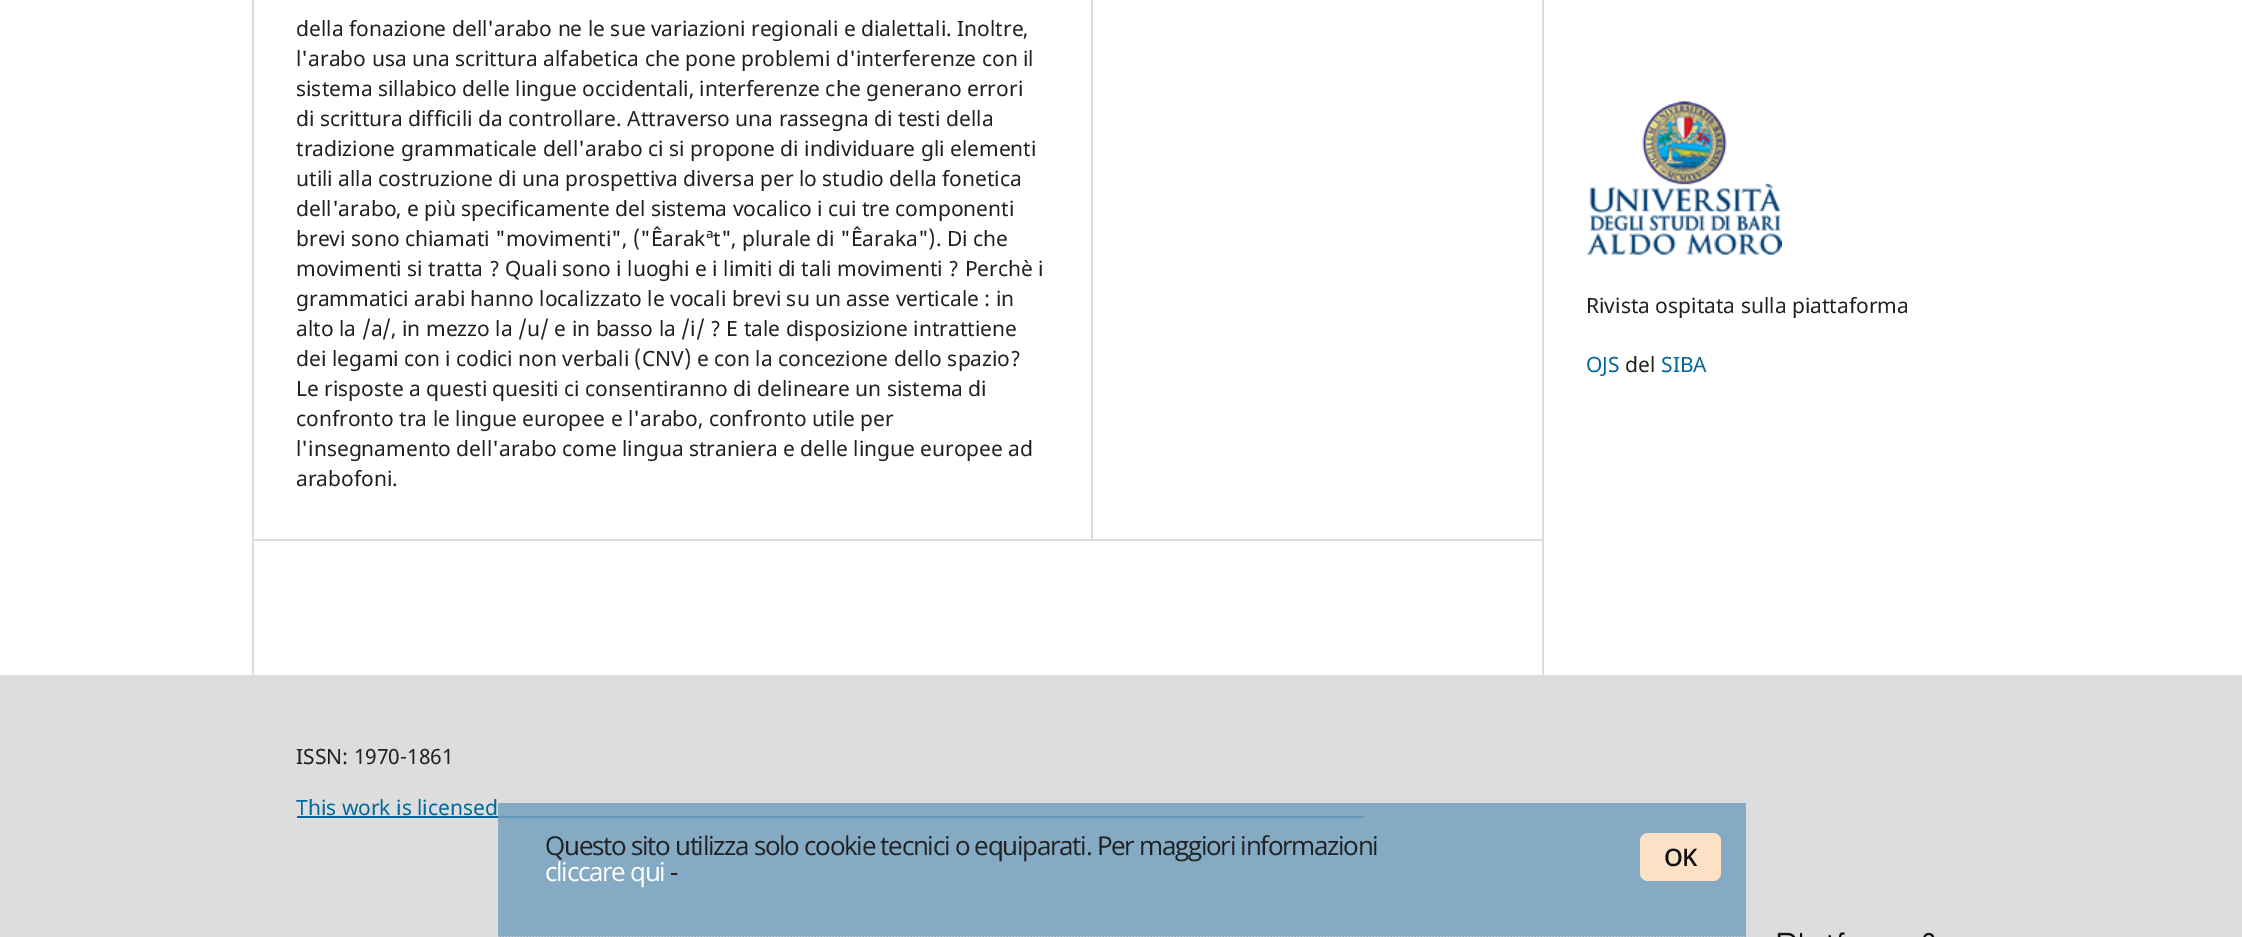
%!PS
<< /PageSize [2242 937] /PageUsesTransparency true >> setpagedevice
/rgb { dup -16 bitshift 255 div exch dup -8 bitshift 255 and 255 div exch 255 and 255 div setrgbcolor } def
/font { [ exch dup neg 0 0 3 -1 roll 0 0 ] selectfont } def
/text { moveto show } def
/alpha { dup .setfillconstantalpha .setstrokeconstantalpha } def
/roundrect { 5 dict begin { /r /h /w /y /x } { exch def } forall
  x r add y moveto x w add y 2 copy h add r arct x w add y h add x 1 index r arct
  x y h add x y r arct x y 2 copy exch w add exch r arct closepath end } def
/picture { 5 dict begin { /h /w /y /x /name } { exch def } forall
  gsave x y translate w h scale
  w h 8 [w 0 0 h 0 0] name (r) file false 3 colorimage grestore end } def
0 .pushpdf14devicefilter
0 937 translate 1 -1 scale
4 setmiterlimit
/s1 { /NotoSans-Regular 21 font 16#212121 rgb } def
/s2 { /NotoSans-Regular 21 font 16#006798 rgb } def
16#FFFFFF rgb
0 0 2242 937 rectfill
16#DDDDDD rgb
252 539 1290 2 rectfill
252 0 2 675 rectfill
1091 0 2 539 rectfill
s1
(della fonazione dell'arabo ne le sue variazioni regionali e dialettali. Inoltre,) 296 36 text
(l'arabo usa una scrittura alfabetica che pone problemi d'interferenze con il) 296 66 text
(sistema sillabico delle lingue occidentali, interferenze che generano errori) 296 96 text
(di scrittura difficili da controllare. Attraverso una rassegna di testi della) 296 126 text
(tradizione grammaticale dell'arabo ci si propone di individuare gli elementi) 296 156 text
(utili alla costruzione di una prospettiva diversa per lo studio della fonetica) 296 186 text
(dell'arabo, e più specificamente del sistema vocalico i cui tre componenti) 296 216 text
(brevi sono chiamati "movimenti", \("Êarakªt", plurale di "Êaraka"\). Di che) 296 246 text
(movimenti si tratta ? Quali sono i luoghi e i limiti di tali movimenti ? Perchè i) 296 276 text
(grammatici arabi hanno localizzato le vocali brevi su un asse verticale : in) 296 306 text
(alto la /a/, in mezzo la /u/ e in basso la /i/ ? E tale disposizione intrattiene) 296 336 text
(dei legami con i codici non verbali \(CNV\) e con la concezione dello spazio?) 296 366 text
(Le risposte a questi quesiti ci consentiranno di delineare un sistema di) 296 396 text
(confronto tra le lingue europee e l'arabo, confronto utile per) 296 426 text
(l'insegnamento dell'arabo come lingua straniera e delle lingue europee ad) 296 456 text
(arabofoni.) 296 486 text
16#DDDDDD rgb
1542 0 2 675 rectfill
(pic1.raw) 1587 101 195 154 picture
s1
(Rivista ospitata sulla piattaforma) 1586 313 text
s2
(OJS) 1586 372 text
s1
(del) 1625 372 text
s2
(SIBA) 1661 372 text
16#DDDDDD rgb
0 675 2242 262 rectfill
s1
(ISSN: 1970-1861) 296 764 text
s2
(This work is licensed) 296 815 text
297 816 1067 2 rectfill
(pic2.raw) 1777 932 158 5 picture
0.85 alpha
16#75A1C0 rgb
498 803 1248 134 rectfill
1 alpha
16#CCCCCC rgb
1.5 setlinewidth
[1.5 1.5] 0 setdash
498 937 moveto 1746 937 lineto stroke
/OpenSans-Regular 26 font
16#212121 rgb
545 855 moveto -1.3 0 (Questo sito utilizza solo cookie tecnici o equiparati. Per maggiori informazioni) ashow
16#FFFFFF rgb
545 881 moveto -1.3 0 (cliccare qui) ashow
16#212121 rgb
670 881 moveto -1.3 0 (-) ashow
16#FDE1C4 rgb
1640 833 81 48 8 roundrect fill
/OpenSans-SemiBold 24 font
16#111111 rgb
1664 866 moveto -1 0 (OK) ashow
.poppdf14devicefilter showpage
